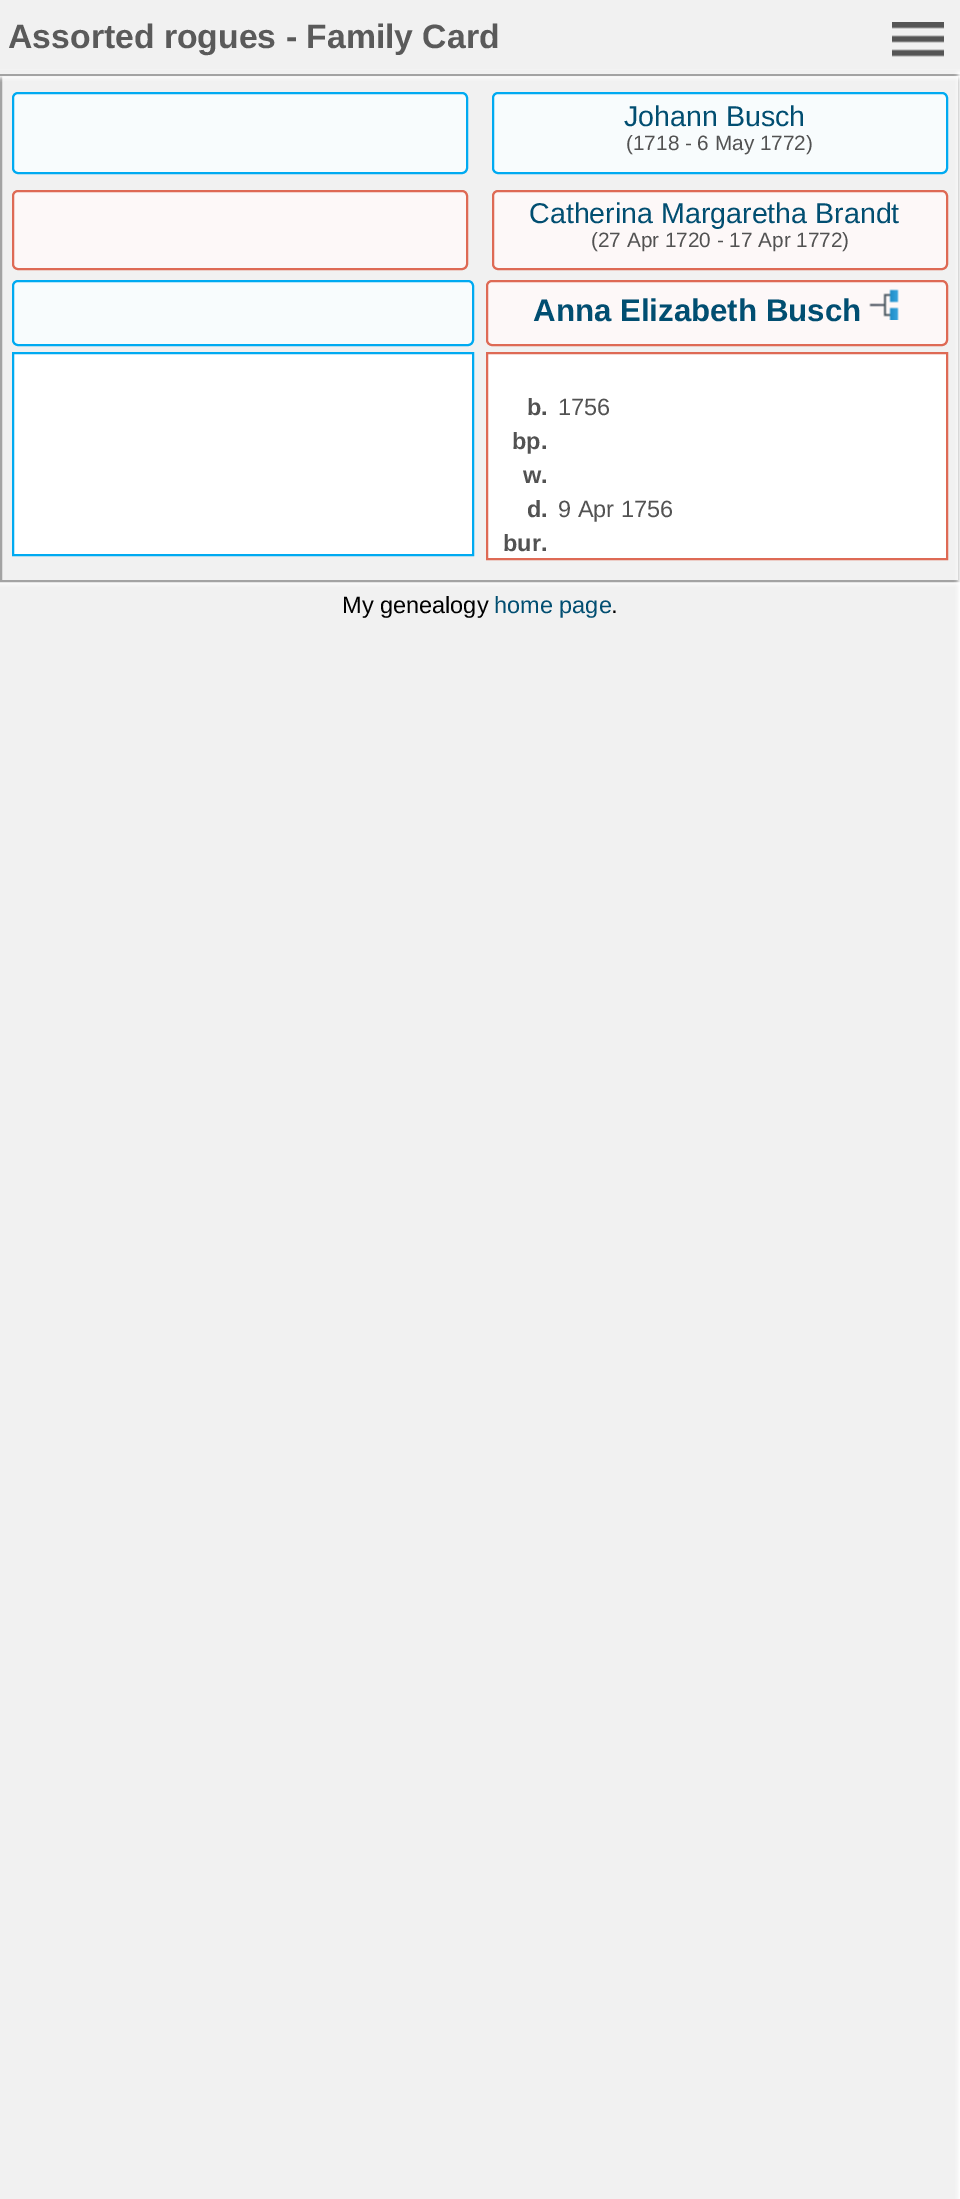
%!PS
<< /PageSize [960 2199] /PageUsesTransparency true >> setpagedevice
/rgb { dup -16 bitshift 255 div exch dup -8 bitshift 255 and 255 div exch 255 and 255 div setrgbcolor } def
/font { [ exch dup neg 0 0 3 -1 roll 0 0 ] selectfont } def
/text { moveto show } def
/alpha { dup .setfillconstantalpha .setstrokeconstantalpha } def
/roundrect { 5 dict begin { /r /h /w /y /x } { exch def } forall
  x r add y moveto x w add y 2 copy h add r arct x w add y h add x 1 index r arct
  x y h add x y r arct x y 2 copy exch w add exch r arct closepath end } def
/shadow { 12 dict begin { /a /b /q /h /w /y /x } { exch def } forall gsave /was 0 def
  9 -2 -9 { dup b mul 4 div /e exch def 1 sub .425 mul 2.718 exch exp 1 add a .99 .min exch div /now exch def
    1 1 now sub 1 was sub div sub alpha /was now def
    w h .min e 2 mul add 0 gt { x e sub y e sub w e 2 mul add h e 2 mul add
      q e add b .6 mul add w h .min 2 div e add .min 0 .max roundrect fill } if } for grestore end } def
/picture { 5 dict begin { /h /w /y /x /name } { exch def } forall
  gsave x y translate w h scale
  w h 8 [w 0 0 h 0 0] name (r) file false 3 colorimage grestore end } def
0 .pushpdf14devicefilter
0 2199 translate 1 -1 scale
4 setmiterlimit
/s1 { /LiberationSans-Bold 33.75 font 16#5A5A5A rgb } def
/s2 { /LiberationSans-Regular 28.6 font 16#014E71 rgb } def
/s3 { /LiberationSans-Regular 20.75 font 16#525252 rgb } def
/s4 { /LiberationSans-Bold 31.25 font 16#014E71 rgb } def
/s5 { /LiberationSans-Bold 23.5 font 16#525252 rgb } def
/s6 { /LiberationSans-Regular 23.5 font 16#525252 rgb } def
/s7 { /LiberationSans-Regular 23.5 font 16#000000 rgb } def
/s8 { /LiberationSans-Regular 23.5 font 16#014E71 rgb } def
16#F1F1F1 rgb
0 0 960 2199 rectfill
gsave
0 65 moveto 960 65 lineto 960 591 lineto 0 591 lineto closepath 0 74 moveto 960 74 lineto 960 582 lineto 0 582 lineto closepath eoclip newpath
16#FFFFFF rgb
-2 72 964 512 0 2 1 shadow
grestore
16#A3A3A3 rgb
2 setlinewidth
1 75 958 506 rectstroke
gsave
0 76 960 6 rectclip
16#FFFFFF rgb
-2 -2 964 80 0 2 0.95 shadow
grestore
0.95 alpha
16#F1F1F1 rgb
0 70 960 4 rectfill
1 alpha
s1
(Assorted rogues - Family Card) 8 48 text
(pic1.raw) 892 22 52 35 picture
16#FFFFFF rgb
958 72 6 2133 0 2 0.95 shadow
16#F8FCFD rgb
13 93 454 80 5 roundrect gsave fill grestore
16#00AAF1 rgb
stroke
16#F8FCFD rgb
493 93 454 80 5 roundrect gsave fill grestore
16#00AAF1 rgb
stroke
s2
(Johann Busch) 624 126 text
s3
(\(1718 - 6 May 1772\)) 626 150 text
16#FDF8F8 rgb
13 191 454 78 5 roundrect gsave fill grestore
16#DE6A55 rgb
stroke
16#FDF8F8 rgb
493 191 454 78 5 roundrect gsave fill grestore
16#DE6A55 rgb
stroke
s2
(Catherina Margaretha Brandt) 529 223 text
s3
(\(27 Apr 1720 - 17 Apr 1772\)) 591 247 text
16#F8FCFD rgb
13 281 460 64 5 roundrect gsave fill grestore
16#00AAF1 rgb
stroke
16#FDF8F8 rgb
487 281 460 64 5 roundrect gsave fill grestore
16#DE6A55 rgb
stroke
s4
(Anna Elizabeth Busch) 533 321 text
(pic2.raw) 869 289 30 31 picture
16#FFFFFF rgb
13 353 moveto 473 353 lineto 473 555 lineto 13 555 lineto closepath gsave fill grestore
16#00AAF1 rgb
stroke
16#FFFFFF rgb
487 353 moveto 947 353 lineto 947 559 lineto 487 559 lineto closepath gsave fill grestore
16#DE6A55 rgb
stroke
s5
(b.) 527 415 text
s6
(1756) 558 415 text
s5
(bp.) 512 449 text
(w.) 523 483 text
(d.) 527 517 text
s6
(9 Apr 1756) 558 517 text
s5
(bur.) 503 551 text
s7
(My genealogy) 342 613 text
s8
(home page) 494 613 text
s7
(.) 611 613 text
.poppdf14devicefilter showpage
